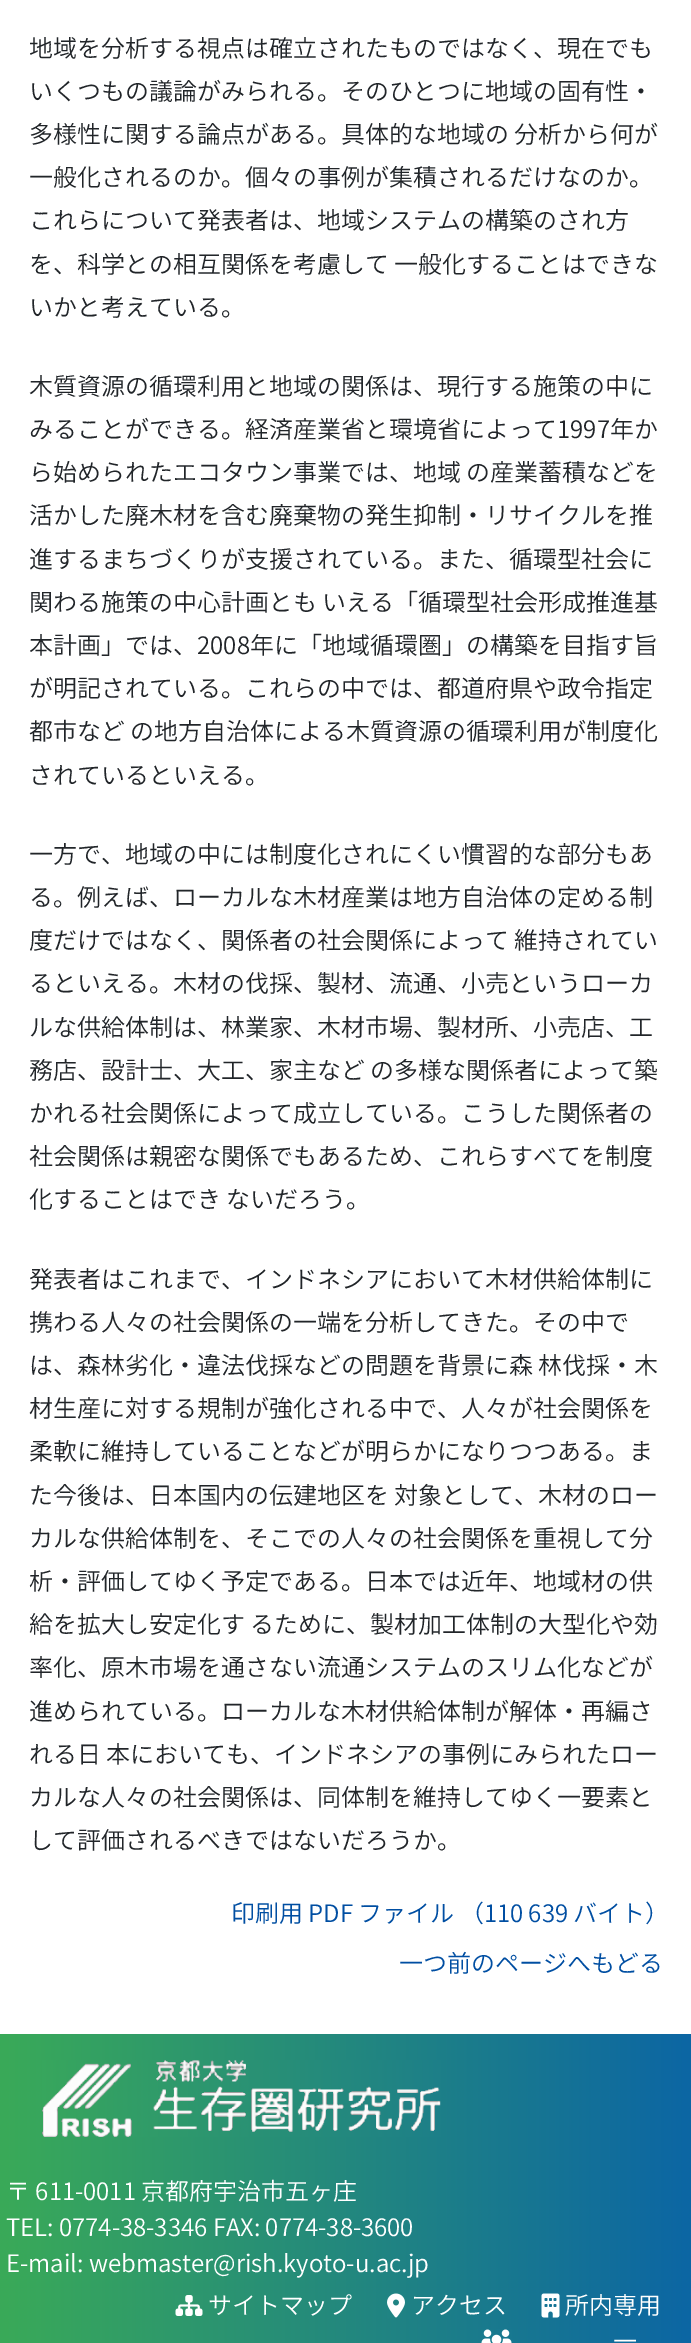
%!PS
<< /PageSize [691 2343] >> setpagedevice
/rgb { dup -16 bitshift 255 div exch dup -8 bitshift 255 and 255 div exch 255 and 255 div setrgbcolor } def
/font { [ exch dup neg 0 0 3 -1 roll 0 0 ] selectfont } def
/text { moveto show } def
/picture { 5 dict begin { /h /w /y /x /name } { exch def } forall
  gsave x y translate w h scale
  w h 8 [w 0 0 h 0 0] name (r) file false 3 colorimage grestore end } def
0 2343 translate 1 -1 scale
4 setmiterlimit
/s1 { /NotoSansJP-Light 24 font 16#212529 rgb } def
/s2 { /NotoSansJP-Light 24 font 16#004EA2 rgb } def
/s3 { /NotoSansJP-Light 24 font 16#FFFFFF rgb } def
16#FFFFFF rgb
0 0 691 2343 rectfill
s1
(地域を分析する視点は確立されたものではなく、現在でも) 29 57 text
(いくつもの議論がみられる。そのひとつに地域の固有性・) 29 100 text
(多様性に関する論点がある。具体的な地域の 分析から何が) 29 143 text
(一般化されるのか。個々の事例が集積されるだけなのか。) 29 186 text
(これらについて発表者は、地域システムの構築のされ方) 29 229 text
(を、科学との相互関係を考慮して 一般化することはできな) 29 273 text
(いかと考えている。) 29 316 text
(木質資源の循環利用と地域の関係は、現行する施策の中に) 29 395 text
(みることができる。経済産業省と環境省によって1997年か) 29 438 text
(ら始められたエコタウン事業では、地域 の産業蓄積などを) 29 481 text
(活かした廃木材を含む廃棄物の発生抑制・リサイクルを推) 29 524 text
(進するまちづくりが支援されている。また、循環型社会に) 29 568 text
(関わる施策の中心計画とも いえる「循環型社会形成推進基) 29 611 text
(本計画」では、2008年に「地域循環圏」の構築を目指す旨) 29 654 text
(が明記されている。これらの中では、都道府県や政令指定) 29 697 text
(都市など の地方自治体による木質資源の循環利用が制度化) 29 740 text
(されているといえる。) 29 784 text
(一方で、地域の中には制度化されにくい慣習的な部分もあ) 29 863 text
(る。例えば、ローカルな木材産業は地方自治体の定める制) 29 906 text
(度だけではなく、関係者の社会関係によって 維持されてい) 29 949 text
(るといえる。木材の伐採、製材、流通、小売というローカ) 29 992 text
(ルな供給体制は、林業家、木材市場、製材所、小売店、工) 29 1036 text
(務店、設計士、大工、家主など の多様な関係者によって築) 29 1079 text
(かれる社会関係によって成立している。こうした関係者の) 29 1122 text
(社会関係は親密な関係でもあるため、これらすべてを制度) 29 1165 text
(化することはでき ないだろう。) 29 1208 text
(発表者はこれまで、インドネシアにおいて木材供給体制に) 29 1288 text
(携わる人々の社会関係の一端を分析してきた。その中で) 29 1331 text
(は、森林劣化・違法伐採などの問題を背景に森 林伐採・木) 29 1374 text
(材生産に対する規制が強化される中で、人々が社会関係を) 29 1417 text
(柔軟に維持していることなどが明らかになりつつある。ま) 29 1460 text
(た今後は、日本国内の伝建地区を 対象として、木材のロー) 29 1504 text
(カルな供給体制を、そこでの人々の社会関係を重視して分) 29 1547 text
(析・評価してゆく予定である。日本では近年、地域材の供) 29 1590 text
(給を拡大し安定化す るために、製材加工体制の大型化や効) 29 1633 text
(率化、原木市場を通さない流通システムのスリム化などが) 29 1676 text
(進められている。ローカルな木材供給体制が解体・再編さ) 29 1720 text
(れる日 本においても、インドネシアの事例にみられたロー) 29 1763 text
(カルな人々の社会関係は、同体制を維持してゆく一要素と) 29 1806 text
(して評価されるべきではないだろうか。) 29 1849 text
s2
(印刷用 PDF ファイル （110 639 バイト）) 231 1922 text
(一つ前のページへもどる) 399 1972 text
gsave 0 2034 moveto 691 2034 lineto 691 2343 lineto 0 2343 lineto closepath clip newpath
<< /ShadingType 2 /ColorSpace /DeviceRGB /Coords [0 2196 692 2196] /Extend [true true] /Function << /FunctionType 2 /Domain [0 1] /C0 [0.227 0.667 0.345] /C1 [0.047 0.4 0.643] /N 1 >> >> shfill grestore
(pic1.raw) 42 2060 399 77 picture
s3
(〒 611-0011 京都府宇治市五ヶ庄) 6 2200 text
(TEL: 0774-38-3346 FAX: 0774-38-3600) 6 2236 text
(E-mail: webmaster@rish.kyoto-u.ac.jp) 6 2272 text
(pic2.raw) 175 2295 28 21 picture
(サイトマップ) 208 2314 text
(pic3.raw) 387 2293 18 25 picture
(アクセス) 411 2314 text
(pic4.raw) 541 2293 19 25 picture
(所内専用) 565 2314 text
(pic5.raw) 481 2329 31 14 picture
(一) 613 2350 text
showpage
